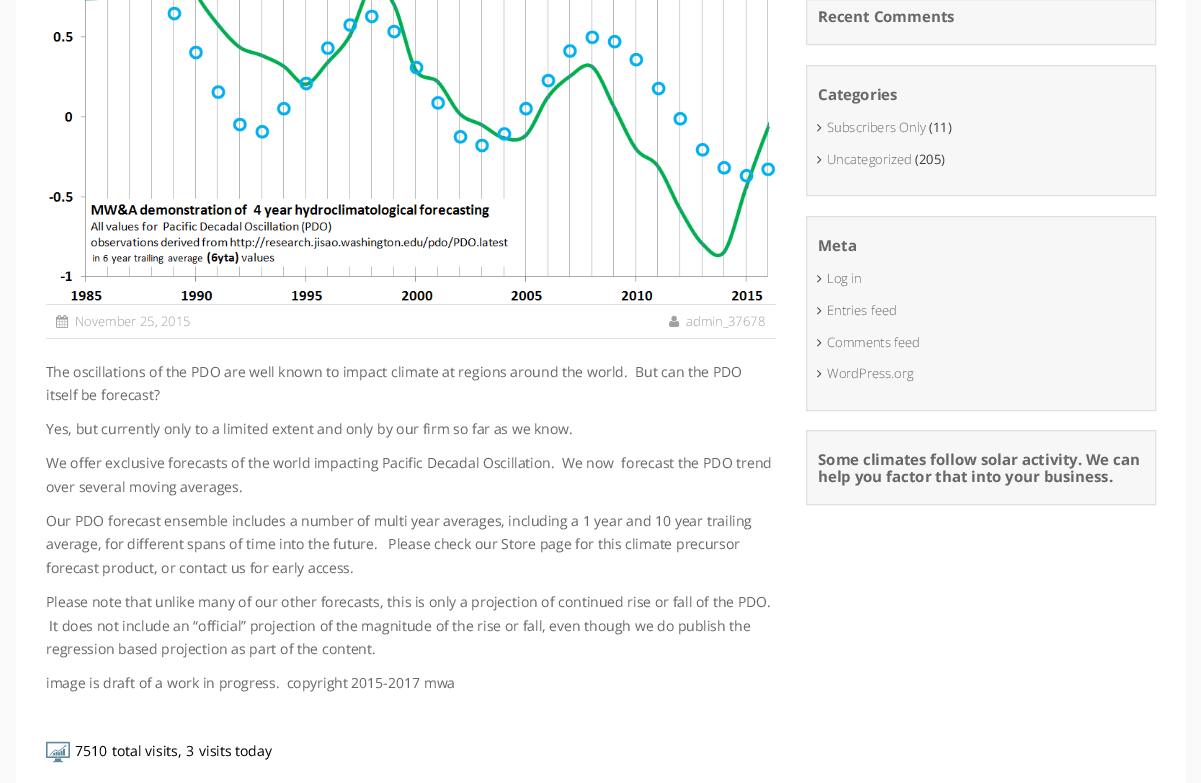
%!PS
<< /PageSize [1201 783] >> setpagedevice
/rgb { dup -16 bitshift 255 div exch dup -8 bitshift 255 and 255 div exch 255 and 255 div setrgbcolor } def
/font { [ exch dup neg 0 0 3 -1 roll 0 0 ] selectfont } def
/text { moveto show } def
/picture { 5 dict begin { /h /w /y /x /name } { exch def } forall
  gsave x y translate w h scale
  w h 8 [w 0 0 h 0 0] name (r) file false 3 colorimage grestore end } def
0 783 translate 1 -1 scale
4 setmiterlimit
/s1 { /OpenSans-Bold 15 font 16#686868 rgb } def
/s2 { /OpenSans-Light 13 font 16#686868 rgb } def
/s3 { /OpenSans-Regular 13 font 16#3A3A3A rgb } def
/s4 { /OpenSans-Light 13 font 16#A0A0A0 rgb } def
/s5 { /NotoSans-Regular 14 font 16#686868 rgb } def
/s6 { /OpenSans-Regular 14 font 16#686868 rgb } def
/s7 { /OpenSans-Regular 14 font 16#000000 rgb } def
16#F9F9F9 rgb
0 0 1201 783 rectfill
16#FFFFFF rgb
16 0 1170 783 rectfill
16#F7F7F7 rgb
806.5 -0.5 moveto 1155.5 -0.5 lineto 1155.5 44.5 lineto 806.5 44.5 lineto closepath gsave fill grestore
16#E0E0E0 rgb
stroke
s1
(Recent Comments) 818 22 text
16#F7F7F7 rgb
806.5 65.5 moveto 1155.5 65.5 lineto 1155.5 195.5 lineto 806.5 195.5 lineto closepath gsave fill grestore
16#E0E0E0 rgb
stroke
s1
(Categories) 818 100 text
(pic1.raw) 817 124 5 8 picture
s2
(Subscribers Only) 827 132 text
s3
(\(11\)) 929 132 text
(pic1.raw) 817 156 5 8 picture
s2
(Uncategorized) 827 164 text
s3
(\(205\)) 915 164 text
16#F7F7F7 rgb
806.5 216.5 moveto 1155.5 216.5 lineto 1155.5 410.5 lineto 806.5 410.5 lineto closepath gsave fill grestore
16#E0E0E0 rgb
stroke
s1
(Meta) 818 251 text
(pic1.raw) 817 275 5 8 picture
s2
(Log in) 827 283 text
(pic1.raw) 817 307 5 8 picture
(Entries feed) 827 315 text
(pic1.raw) 817 339 5 8 picture
(Comments feed) 827 347 text
(pic1.raw) 817 370 5 8 picture
(WordPress.org) 827 378 text
16#F7F7F7 rgb
806.5 430.5 moveto 1155.5 430.5 lineto 1155.5 504.5 lineto 806.5 504.5 lineto closepath gsave fill grestore
16#E0E0E0 rgb
stroke
s1
(Some climates follow solar activity. We can) 818 465 text
(help you factor that into your business.) 818 482 text
(pic2.raw) 49 0 727 301 picture
16#E0E0E0 rgb
46 304 730 1 rectfill
46 338 730 1 rectfill
(pic3.raw) 56 314 13 14 picture
s4
(November 25, 2015) 75 326 text
(pic4.raw) 669 315 11 12 picture
(admin_37678) 686 326 text
s5
(T) 46 377 text
s6
(he oscillations of the PDO are well known to impact climate at regions around the world.  But can the PDO) 53 377 text
(itself be forecast?) 46 400 text
(Yes, but currently only to a limited extent and only by our firm so far as we know.) 46 434 text
(We offer exclusive forecasts of the world impacting Pacific Decadal Oscillation.  We now  forecast the PDO trend) 46 468 text
(over several moving averages.) 46 492 text
(Our PDO forecast ensemble includes a number of multi year averages, including a 1 year and 10 year trailing) 46 526 text
(average, for different spans of time into the future.   Please check our Store page for this climate precursor) 46 549 text
(forecast product, or contact us for early access.) 46 573 text
(Please note that unlike many of our other forecasts, this is only a projection of continued rise or fall of the PDO.) 46 607 text
(It does not include an “official” projection of the magnitude of the rise or fall, even though we do publish the) 49 631 text
(regression based projection as part of the content.) 46 654 text
(image is draft of a work in progress.  copyright 2015-2017 mwa) 46 688 text
(pic5.raw) 46 741 24 22 picture
s7
(7510) 75 756 text
(total visits,) 112 756 text
(3) 186 756 text
(visits today) 199 756 text
showpage
